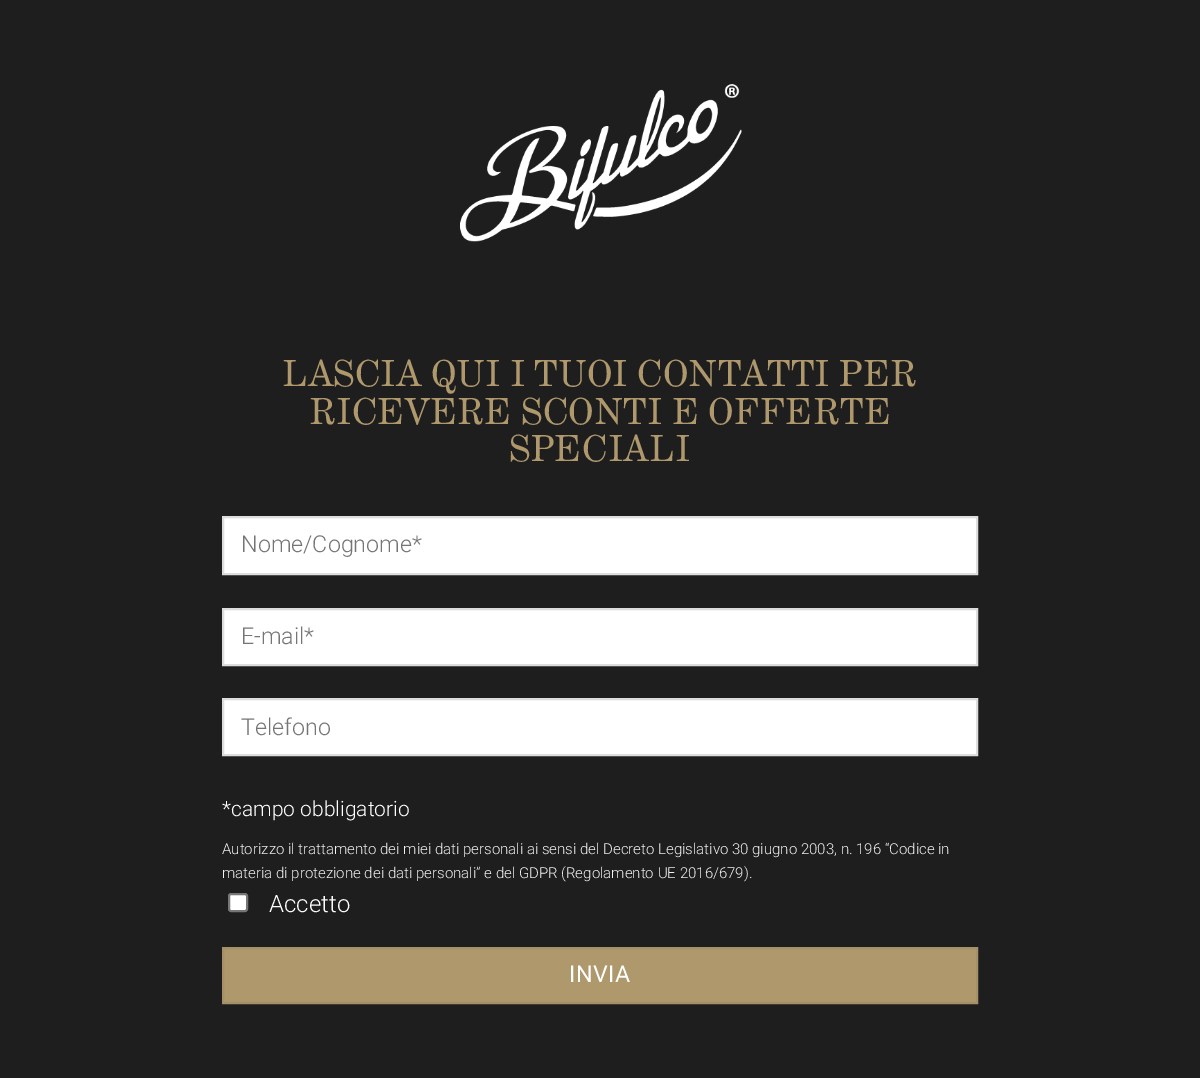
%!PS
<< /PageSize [1200 1078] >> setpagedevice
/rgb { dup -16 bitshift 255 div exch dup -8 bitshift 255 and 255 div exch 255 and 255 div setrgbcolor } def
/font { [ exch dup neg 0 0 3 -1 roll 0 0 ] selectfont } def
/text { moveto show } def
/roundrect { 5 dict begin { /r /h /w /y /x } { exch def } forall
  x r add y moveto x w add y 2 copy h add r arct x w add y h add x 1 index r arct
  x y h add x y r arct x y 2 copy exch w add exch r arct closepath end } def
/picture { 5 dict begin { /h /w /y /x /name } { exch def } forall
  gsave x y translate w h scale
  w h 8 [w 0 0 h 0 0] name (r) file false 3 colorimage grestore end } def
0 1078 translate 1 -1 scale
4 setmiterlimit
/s1 { /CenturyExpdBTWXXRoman-Regular 36 font 16#AE986C rgb } def
/s2 { /Roboto-Light 23.25 font 16#757575 rgb } def
/s3 { /Roboto-Light 21 font 16#FFFFFF rgb } def
/s4 { /Roboto-Light 15 font 16#F1F1F1 rgb } def
/s5 { /Roboto-Light 24 font 16#FFFFFF rgb } def
16#1E1E1E rgb
0 0 1200 1078 rectfill
(pic1.raw) 459 84 283 158 picture
s1
(LASCIA QUI I TUOI CONTATTI PER) 282 386 text
(RICEVERE SCONTI E OFFERTE) 309 424 text
(SPECIALI) 509 461 text
16#FFFFFF rgb
223 517 moveto 977 517 lineto 977 574 lineto 223 574 lineto closepath gsave fill grestore
16#DDDDDD rgb
2 setlinewidth
stroke
s2
(Nome/Cognome*) 241 552 text
16#FFFFFF rgb
223 609 moveto 977 609 lineto 977 665 lineto 223 665 lineto closepath gsave fill grestore
16#DDDDDD rgb
stroke
s2
(E-mail*) 241 644 text
16#FFFFFF rgb
223 699 moveto 977 699 lineto 977 755 lineto 223 755 lineto closepath gsave fill grestore
16#DDDDDD rgb
stroke
s2
(Telefono) 241 735 text
s3
(*campo obbligatorio) 222 816 text
s4
(Autorizzo il trattamento dei miei dati personali ai sensi del Decreto Legislativo 30 giugno 2003, n. 196 “Codice in) 222 854 text
(materia di protezione dei dati personali” e del GDPR \(Regolamento UE 2016/679\).) 222 878 text
16#FFFFFF rgb
229 894 18 17 2 roundrect gsave fill grestore
16#767676 rgb
stroke
s5
(Accetto) 269 912 text
16#AE986C rgb
223 948 moveto 977 948 lineto 977 1003 lineto 223 1003 lineto closepath gsave fill grestore
16#A59067 rgb
stroke
/Roboto-Regular 23.25 font
16#FFFFFF rgb
569 982 moveto 0.5 0 (INVIA) ashow
showpage
